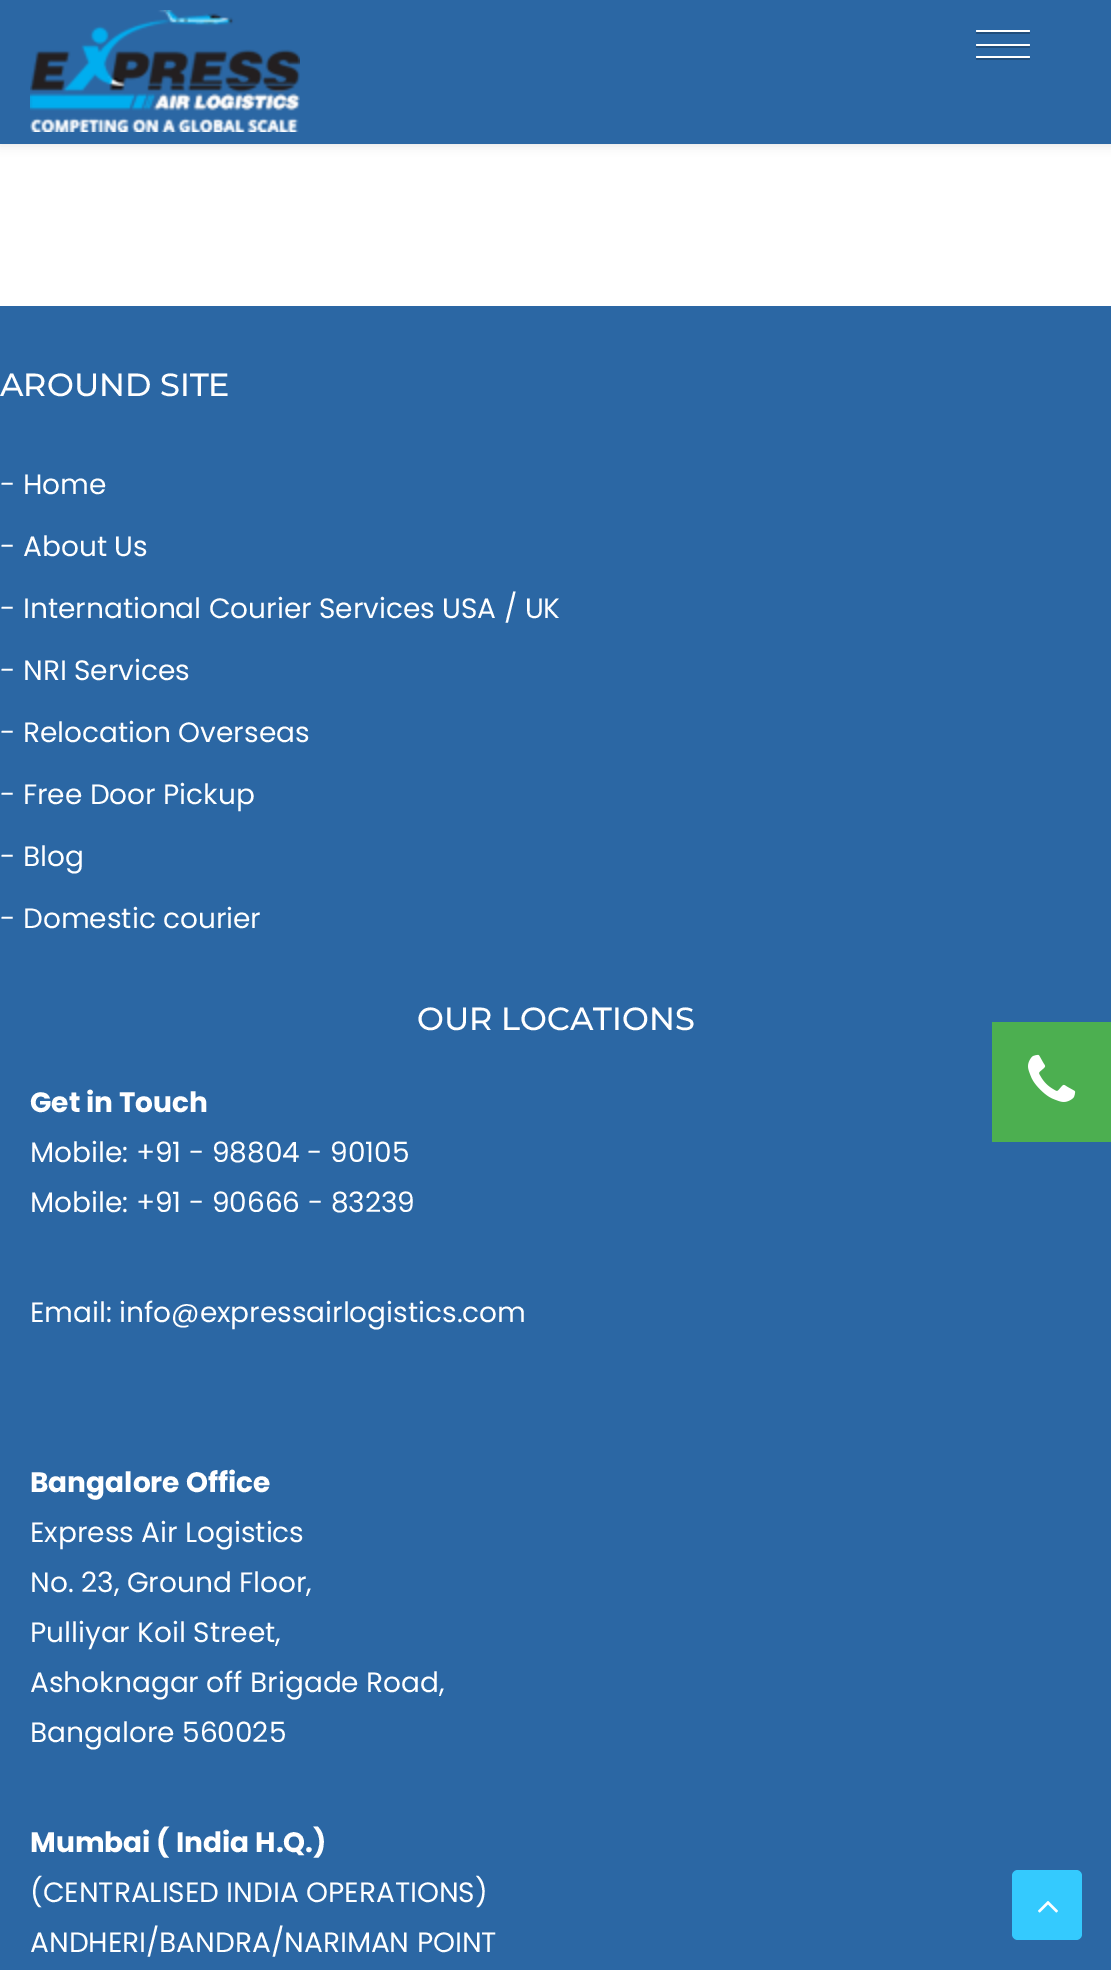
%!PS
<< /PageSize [1111 1970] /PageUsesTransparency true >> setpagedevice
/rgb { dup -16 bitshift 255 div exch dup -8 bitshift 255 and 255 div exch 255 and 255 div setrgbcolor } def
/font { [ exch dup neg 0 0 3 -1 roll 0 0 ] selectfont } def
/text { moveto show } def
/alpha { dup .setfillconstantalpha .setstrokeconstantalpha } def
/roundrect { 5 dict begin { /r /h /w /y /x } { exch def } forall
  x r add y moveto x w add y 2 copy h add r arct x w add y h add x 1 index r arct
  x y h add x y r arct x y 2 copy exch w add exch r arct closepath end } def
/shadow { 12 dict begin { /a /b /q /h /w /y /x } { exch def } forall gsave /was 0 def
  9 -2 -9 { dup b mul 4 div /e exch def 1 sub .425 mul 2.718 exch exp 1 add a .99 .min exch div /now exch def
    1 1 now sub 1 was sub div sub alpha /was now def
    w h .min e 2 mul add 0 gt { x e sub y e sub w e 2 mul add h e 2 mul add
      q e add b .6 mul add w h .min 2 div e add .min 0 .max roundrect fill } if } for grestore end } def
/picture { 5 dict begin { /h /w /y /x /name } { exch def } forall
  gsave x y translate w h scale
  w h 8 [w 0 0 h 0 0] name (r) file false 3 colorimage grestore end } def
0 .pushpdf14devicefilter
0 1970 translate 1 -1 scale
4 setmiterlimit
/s1 { /Montserrat-Medium 32 font 16#FFFFFF rgb } def
/s2 { /Poppins-Regular 28 font 16#FFFFFF rgb } def
/s3 { /Poppins-Bold 28 font 16#FFFFFF rgb } def
16#FFFFFF rgb
0 0 1111 1970 rectfill
16#000000 rgb
0 2 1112 144 0 5 0.1 shadow
16#2B67A4 rgb
0 0 1111 144 rectfill
(pic1.raw) 30 10 270 122 picture
16#204D7B rgb
976 32 54 2 1 roundrect fill
16#FFFFFF rgb
976 30 54 2 1 roundrect fill
16#204D7B rgb
976 46 54 2 1 roundrect fill
16#FFFFFF rgb
976 44 54 2 1 roundrect fill
16#204D7B rgb
976 58 54 2 1 roundrect fill
16#FFFFFF rgb
976 56 54 2 1 roundrect fill
16#2B67A4 rgb
0 306 1111 1664 rectfill
s1
(AROUND SITE) 0 396 text
s2
(- Home) 0 494 text
(- About Us) 0 556 text
(- International Courier Services USA / UK) 0 618 text
(- NRI Services) 0 680 text
(- Relocation Overseas) 0 742 text
(- Free Door Pickup) 0 804 text
(- Blog) 0 866 text
(- Domestic courier) 0 928 text
s1
(OUR LOCATIONS) 417 1030 text
s3
(Get in Touch) 30 1112 text
s2
(Mobile: +91 - 98804 - 90105) 30 1162 text
(Mobile: +91 - 90666 - 83239) 30 1212 text
(Email: info@expressairlogistics.com) 30 1322 text
s3
(Bangalore Office) 30 1492 text
s2
(Express Air Logistics) 30 1542 text
(No. 23, Ground Floor,) 30 1592 text
(Pulliyar Koil Street,) 30 1642 text
(Ashoknagar off Brigade Road,) 30 1692 text
(Bangalore 560025) 30 1742 text
s3
(Mumbai \( India H.Q.\)) 30 1852 text
s2
(\(CENTRALISED INDIA OPERATIONS\)) 30 1902 text
(ANDHERI/BANDRA/NARIMAN POINT) 30 1952 text
16#4CAF50 rgb
992 1022 119 120 rectfill
(pic2.raw) 1028 1054 48 48 picture
16#34CAFE rgb
1012 1870 70 70 6 roundrect fill
(pic3.raw) 1038 1901 20 12 picture
.poppdf14devicefilter showpage
